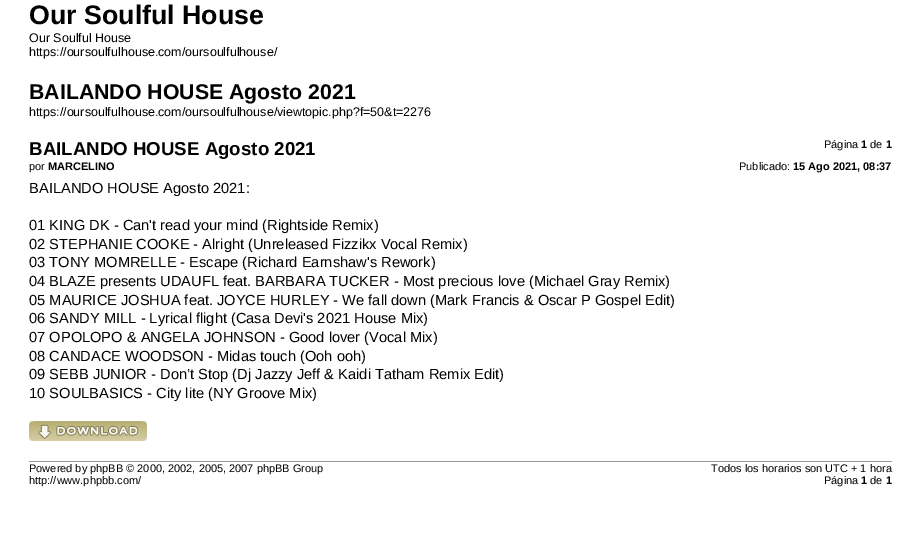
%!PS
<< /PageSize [921 559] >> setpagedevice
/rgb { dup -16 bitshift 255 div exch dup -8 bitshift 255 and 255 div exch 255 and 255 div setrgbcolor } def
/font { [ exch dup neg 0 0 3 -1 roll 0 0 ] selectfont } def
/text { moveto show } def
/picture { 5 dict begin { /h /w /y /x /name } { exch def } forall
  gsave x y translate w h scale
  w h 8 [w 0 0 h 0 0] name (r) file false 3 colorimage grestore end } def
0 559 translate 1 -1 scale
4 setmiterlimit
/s1 { /LiberationSans-Bold 26.75 font 16#000000 rgb } def
/s2 { /LiberationSans-Regular 12.5 font 16#000000 rgb } def
/s3 { /LiberationSans-Bold 21.3 font 16#000000 rgb } def
/s4 { /LiberationSans-Regular 11 font 16#000000 rgb } def
/s5 { /LiberationSans-Bold 11 font 16#000000 rgb } def
/s6 { /LiberationSans-Bold 18.7 font 16#000000 rgb } def
/s7 { /LiberationSans-Regular 14.65 font 16#000000 rgb } def
16#FFFFFF rgb
0 0 921 559 rectfill
s1
(Our Soulful House) 29 24 text
s2
(Our Soulful House) 29 42 text
(https://oursoulfulhouse.com/oursoulfulhouse/) 29 56 text
s3
(BAILANDO HOUSE Agosto 2021) 29 99 text
s2
(https://oursoulfulhouse.com/oursoulfulhouse/viewtopic.php?f=50&t=2276) 29 116 text
s4
(Página) 824 148 text
s5
(1) 861 148 text
s4
(de) 870 148 text
s5
(1) 886 148 text
s6
(BAILANDO HOUSE Agosto 2021) 29 155 text
s4
(por) 29 170 text
s5
(MARCELINO) 48 170 text
s4
(Publicado:) 739 170 text
s5
(15 Ago 2021, 08:37) 793 170 text
s7
(BAILANDO HOUSE Agosto 2021:) 29 193 text
(01 KING DK - Can't read your mind \(Rightside Remix\)) 29 230 text
(02 STEPHANIE COOKE - Alright \(Unreleased Fizzikx Vocal Remix\)) 29 249 text
(03 TONY MOMRELLE - Escape \(Richard Earnshaw's Rework\)) 29 267 text
(04 BLAZE presents UDAUFL feat. BARBARA TUCKER - Most precious love \(Michael Gray Remix\)) 29 286 text
(05 MAURICE JOSHUA feat. JOYCE HURLEY - We fall down \(Mark Francis & Oscar P Gospel Edit\)) 29 305 text
(06 SANDY MILL - Lyrical flight \(Casa Devi's 2021 House Mix\)) 29 323 text
(07 OPOLOPO & ANGELA JOHNSON - Good lover \(Vocal Mix\)) 29 342 text
(08 CANDACE WOODSON - Midas touch \(Ooh ooh\)) 29 361 text
(09 SEBB JUNIOR - Don’t Stop \(Dj Jazzy Jeff & Kaidi Tatham Remix Edit\)) 29 379 text
(10 SOULBASICS - City lite \(NY Groove Mix\)) 29 398 text
(pic1.raw) 29 421 118 20 picture
16#999999 rgb
29 461 863 1 rectfill
s4
(Powered by phpBB © 2000, 2002, 2005, 2007 phpBB Group) 29 472 text
(http://www.phpbb.com/) 29 484 text
(Todos los horarios son UTC + 1 hora) 711 472 text
(Página) 824 484 text
s5
(1) 861 484 text
s4
(de) 870 484 text
s5
(1) 886 484 text
showpage
